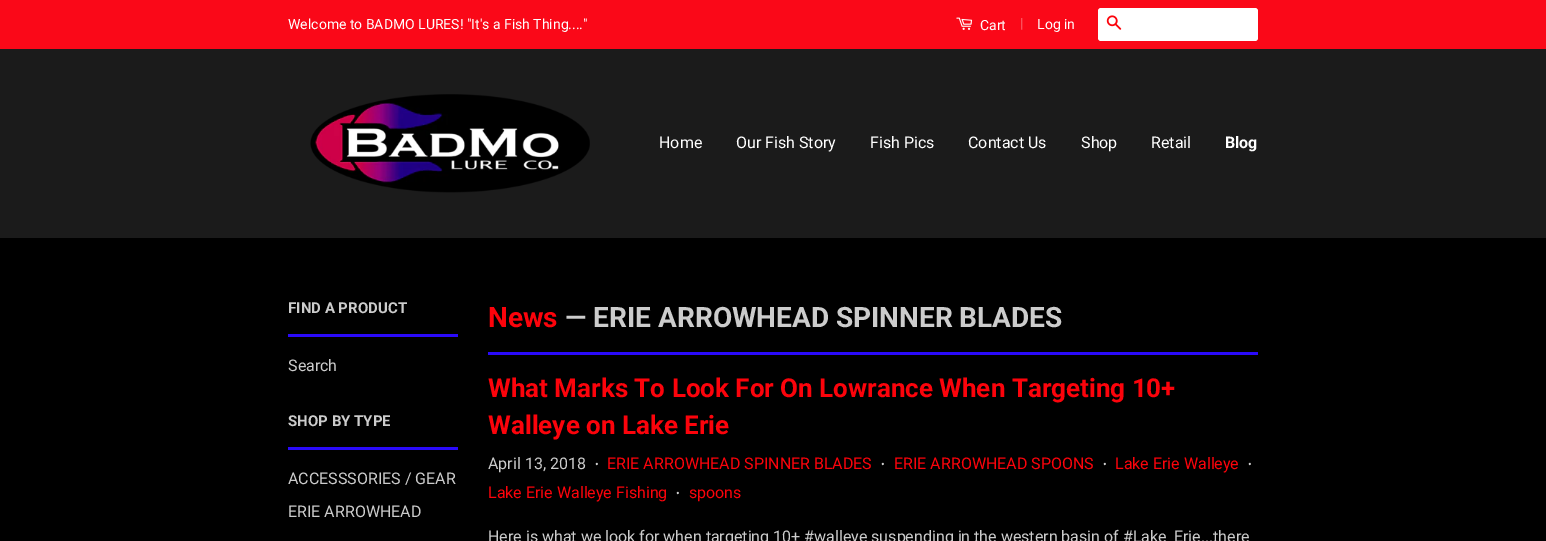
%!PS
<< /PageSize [1546 541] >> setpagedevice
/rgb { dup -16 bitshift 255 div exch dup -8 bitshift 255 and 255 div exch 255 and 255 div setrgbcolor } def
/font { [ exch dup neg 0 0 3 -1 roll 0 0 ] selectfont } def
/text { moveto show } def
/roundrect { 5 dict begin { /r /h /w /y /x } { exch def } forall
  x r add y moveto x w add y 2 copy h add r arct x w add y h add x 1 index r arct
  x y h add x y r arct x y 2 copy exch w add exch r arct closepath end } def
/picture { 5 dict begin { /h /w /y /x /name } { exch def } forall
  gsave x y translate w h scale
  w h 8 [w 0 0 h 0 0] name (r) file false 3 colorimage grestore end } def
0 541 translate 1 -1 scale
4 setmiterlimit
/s1 { /Roboto-Regular 14 font 16#FFFFFF rgb } def
/s2 { /Roboto-Regular 14 font 16#FC6B74 rgb } def
/s3 { /Roboto-Regular 16 font 16#FFFFFF rgb } def
/s4 { /Roboto-Bold 16 font 16#FFFFFF rgb } def
/s5 { /Roboto-Bold 15 font 16#CCCCCC rgb } def
/s6 { /Roboto-Regular 16 font 16#CCCCCC rgb } def
/s7 { /Roboto-Bold 28 font 16#FC030B rgb } def
/s8 { /Roboto-Bold 28 font 16#CCCCCC rgb } def
/s9 { /Roboto-Bold 26 font 16#FC030B rgb } def
/s10 { /Roboto-Regular 11 font 16#CCCCCC rgb } def
/s11 { /Roboto-Regular 16 font 16#FC030B rgb } def
16#000000 rgb
0 0 1546 541 rectfill
16#FA0818 rgb
0 0 1546 49 rectfill
s1
(Welcome to BADMO LURES! "It's a Fish Thing....") 288 29 text
(pic1.raw) 956 17 17 13 picture
(Cart) 980 30 text
s2
(|) 1020 28 text
s1
(Log in) 1037 29 text
1098 8 160 33 3 roundrect fill
(pic2.raw) 1106 15 16 15 picture
16#1B1B1B rgb
0 49 1546 189 rectfill
(pic3.raw) 310 94 280 99 picture
s3
(Home) 659 148 text
(Our Fish Story) 736 148 text
(Fish Pics) 870 148 text
(Contact Us) 968 148 text
(Shop) 1081 148 text
(Retail) 1151 148 text
s4
(Blog) 1225 148 text
16#2A0AFA rgb
288 334 170 3 rectfill
s5
(FIND A PRODUCT) 288 313 text
s6
(Search) 288 371 text
16#2A0AFA rgb
288 447 170 3 rectfill
s5
(SHOP BY TYPE) 288 426 text
s6
(ACCESSSORIES / GEAR) 288 484 text
(ERIE ARROWHEAD) 288 517 text
16#2A0AFA rgb
488 352 770 3 rectfill
s7
(News) 488 327 text
s8
(— ERIE ARROWHEAD SPINNER BLADES) 565 327 text
s9
(What Marks To Look For On Lowrance When Targeting 10+) 488 397 text
(Walleye on Lake Erie) 488 434 text
s6
(April 13, 2018) 488 469 text
s10
(•) 595 468 text
s11
(ERIE ARROWHEAD SPINNER BLADES) 607 469 text
s10
(•) 881 468 text
s11
(ERIE ARROWHEAD SPOONS) 894 469 text
s10
(•) 1103 468 text
s11
(Lake Erie Walleye) 1115 469 text
s10
(•) 1248 468 text
s11
(Lake Erie Walleye Fishing) 488 498 text
s10
(•) 676 497 text
s11
(spoons) 689 498 text
s6
(Here is what we look for when targeting 10+ #walleye suspending in the western basin of #Lake_Erie...there) 488 542 text
showpage
